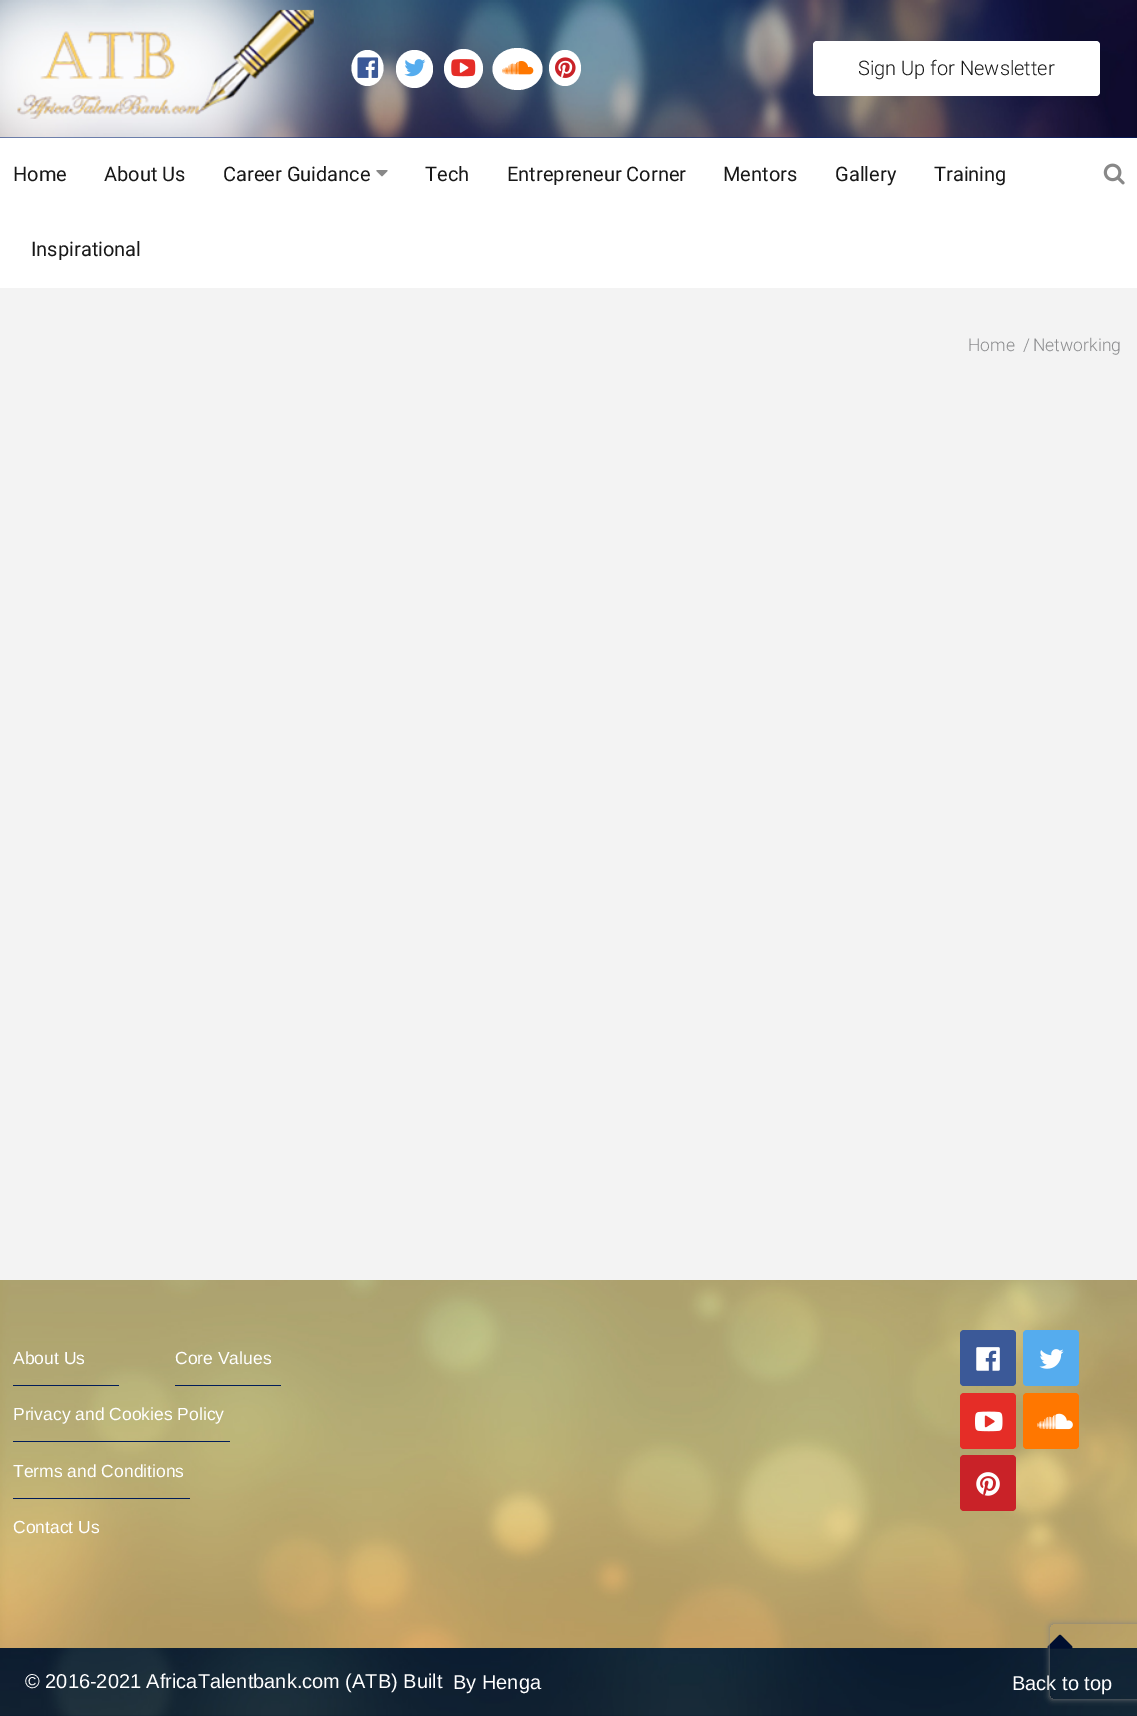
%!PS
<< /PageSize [1137 1716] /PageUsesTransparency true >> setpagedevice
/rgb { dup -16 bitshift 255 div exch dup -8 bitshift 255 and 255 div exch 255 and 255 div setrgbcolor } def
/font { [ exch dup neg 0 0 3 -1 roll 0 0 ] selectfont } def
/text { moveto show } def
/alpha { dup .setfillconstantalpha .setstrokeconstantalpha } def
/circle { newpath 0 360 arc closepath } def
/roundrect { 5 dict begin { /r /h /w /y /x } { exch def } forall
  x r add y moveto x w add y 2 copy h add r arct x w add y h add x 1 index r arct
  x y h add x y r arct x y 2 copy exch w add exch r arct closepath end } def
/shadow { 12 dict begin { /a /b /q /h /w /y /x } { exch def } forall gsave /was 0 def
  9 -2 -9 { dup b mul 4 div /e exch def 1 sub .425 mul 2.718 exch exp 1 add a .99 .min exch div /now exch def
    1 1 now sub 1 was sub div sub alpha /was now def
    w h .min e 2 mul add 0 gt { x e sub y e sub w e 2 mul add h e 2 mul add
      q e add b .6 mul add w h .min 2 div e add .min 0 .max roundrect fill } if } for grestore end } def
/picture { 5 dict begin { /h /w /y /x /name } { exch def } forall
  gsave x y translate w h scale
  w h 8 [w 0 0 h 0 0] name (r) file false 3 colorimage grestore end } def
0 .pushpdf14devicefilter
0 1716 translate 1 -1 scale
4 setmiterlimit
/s1 { /Roboto-Light 20 font 16#181818 rgb } def
/s2 { /Roboto-Regular 20 font 16#181818 rgb } def
/s3 { /Roboto-Light 17.5 font 16#8B8C8E rgb } def
/s4 { /LiberationSans-Regular 17.5 font 16#FFFFFF rgb } def
/s5 { /LiberationSans-Regular 20 font 16#FFFFFF rgb } def
16#F3F3F3 rgb
0 0 1137 1716 rectfill
16#042778 rgb
0 137 1137 1 rectfill
(pic1.raw) 0 0 1137 138 picture
(pic2.raw) 17 9 297 110 picture
16#FFFFFF rgb
367.5 50 moveto 376.5 50 383.5 58 383.5 68 curveto 383.5 78 376.5 86 367.5 86 curveto 358.5 86 351.5 78 351.5 68 curveto 351.5 58 358.5 50 367.5 50 curveto closepath fill
(pic3.raw) 357 57 22 21 picture
396 50 37 38 18.5 roundrect fill
(pic4.raw) 404 59 22 18 picture
463.5 68.5 19.5 circle fill
(pic5.raw) 451 59 25 18 picture
517.5 48 moveto 531.5 48 542.5 57.5 542.5 69 curveto 542.5 80.5 531.5 90 517.5 90 curveto 503.5 90 492.5 80.5 492.5 69 curveto 492.5 57.5 503.5 48 517.5 48 curveto closepath fill
(pic6.raw) 502 61 32 14 picture
565 50 moveto 574 50 581 58 581 68 curveto 581 78 574 86 565 86 curveto 556 86 549 78 549 68 curveto 549 58 556 50 565 50 curveto closepath fill
(pic7.raw) 555 57 21 21 picture
813 41 287 55 4 roundrect fill
s1
(Sign Up for Newsletter) 858 75 text
16#FFFFFF rgb
0 138 1137 150 rectfill
s2
(Home) 13 181 text
(About Us) 104 181 text
(Career Guidance) 223 181 text
(pic8.raw) 376 170 12 7 picture
(Tech) 425 181 text
(Entrepreneur Corner) 507 181 text
(Mentors) 723 181 text
(Gallery) 835 181 text
(Training) 934 181 text
(Inspirational) 31 256 text
(pic9.raw) 1103 163 22 22 picture
s3
(Home) 968 351 text
(/) 1023 351 text
(Networking) 1033 351 text
(pic10.raw) 0 1280 1137 436 picture
16#011C59 rgb
13 1385 106 1 rectfill
s4
(About Us) 13 1364 text
16#011C59 rgb
175 1385 106 1 rectfill
s4
(Core Values) 175 1364 text
16#011C59 rgb
13 1441 217 1 rectfill
s4
(Privacy and Cookies Policy) 13 1420 text
16#011C59 rgb
13 1498 177 1 rectfill
s4
(Terms and Conditions) 13 1477 text
(Contact Us) 13 1533 text
16#3B5998 rgb
960 1330 56 56 4 roundrect fill
(pic11.raw) 976 1347 24 24 picture
16#55ACEE rgb
1023 1330 56 56 4 roundrect fill
(pic12.raw) 1039 1349 25 20 picture
16#E52D27 rgb
960 1393 56 56 4 roundrect fill
(pic13.raw) 975 1411 28 21 picture
16#FF7700 rgb
1023 1393 56 56 4 roundrect fill
(pic14.raw) 1037 1413 36 17 picture
16#C92228 rgb
960 1455 56 56 4 roundrect fill
(pic15.raw) 976 1472 24 24 picture
(pic16.raw) 0 1648 1137 68 picture
s5
(© 2016-2021 AfricaTalentbank.com \(ATB\) Built) 25 1688 text
(By Henga) 453 1689 text
(pic17.raw) 1047 1634 26 15 picture
(Back to top) 1012 1690 text
gsave
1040 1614 moveto 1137 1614 lineto 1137 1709 lineto 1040 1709 lineto closepath 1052.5 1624 moveto 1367.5 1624 lineto 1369 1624 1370 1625 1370 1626.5 curveto 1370 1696.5 lineto 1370 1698 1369 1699 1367.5 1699 curveto 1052.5 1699 lineto 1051 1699 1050 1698 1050 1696.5 curveto 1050 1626.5 lineto 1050 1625 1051 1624 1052.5 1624 curveto closepath eoclip newpath
16#808080 rgb
1050 1624 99 75 2.5 3 1 shadow
grestore
.poppdf14devicefilter showpage
